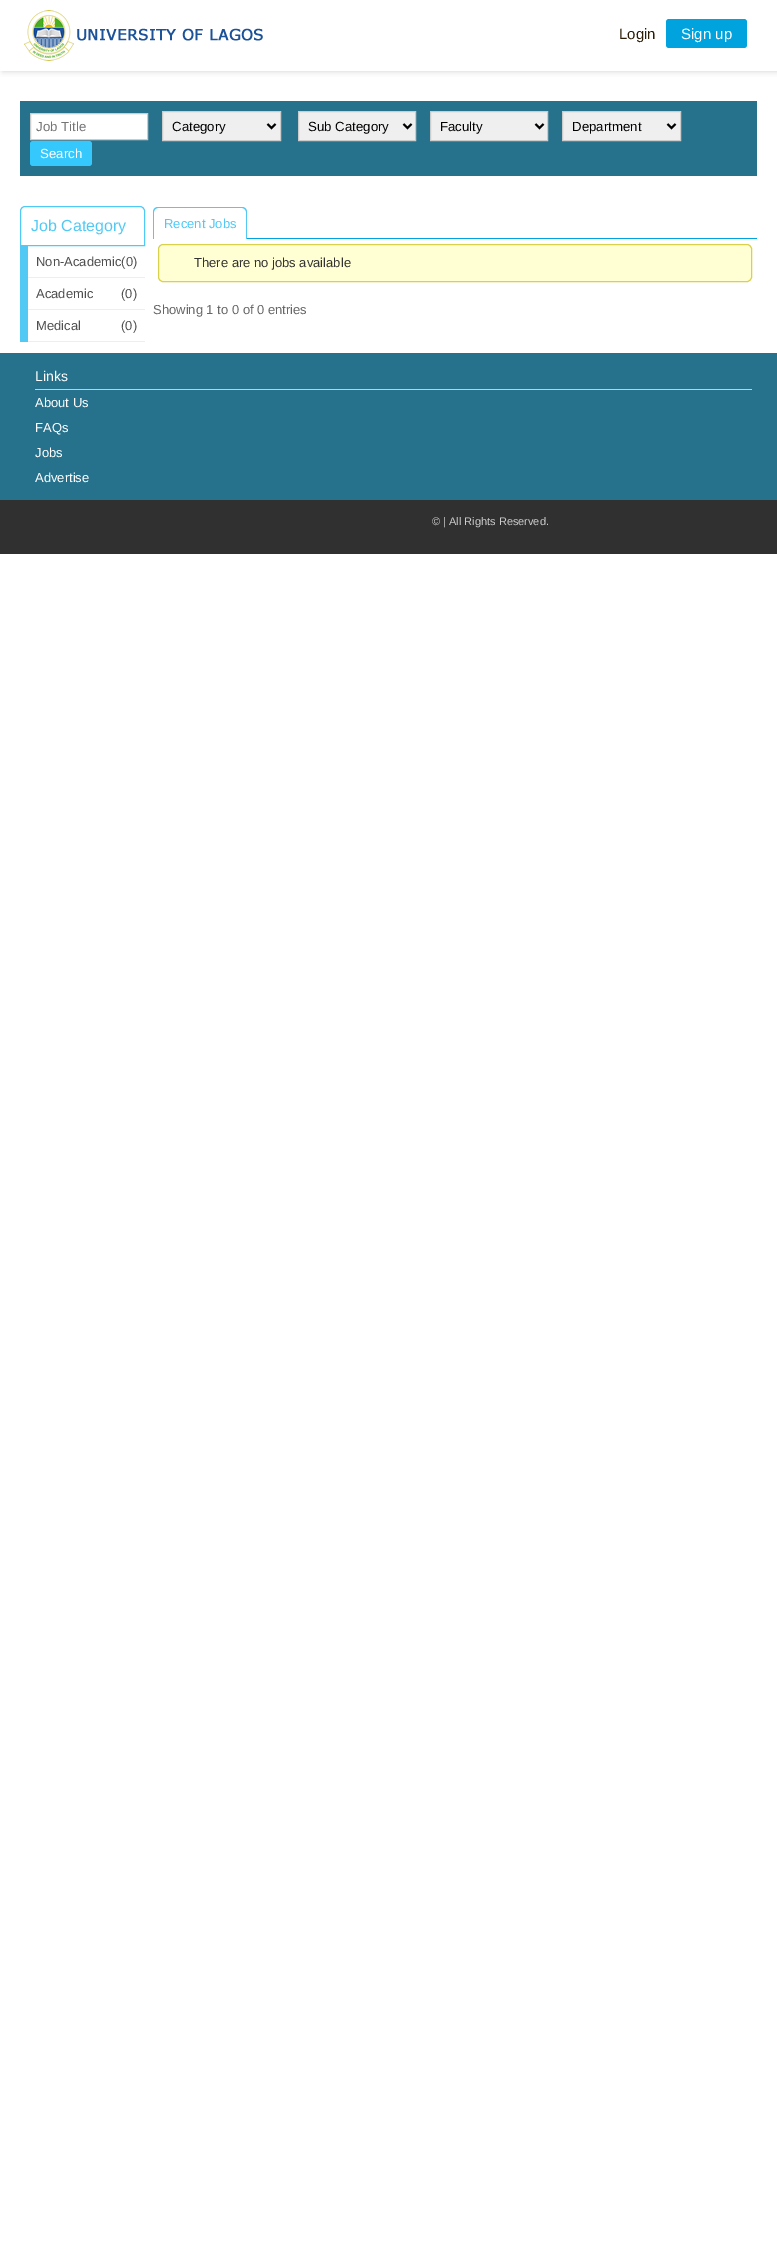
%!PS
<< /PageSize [777 2248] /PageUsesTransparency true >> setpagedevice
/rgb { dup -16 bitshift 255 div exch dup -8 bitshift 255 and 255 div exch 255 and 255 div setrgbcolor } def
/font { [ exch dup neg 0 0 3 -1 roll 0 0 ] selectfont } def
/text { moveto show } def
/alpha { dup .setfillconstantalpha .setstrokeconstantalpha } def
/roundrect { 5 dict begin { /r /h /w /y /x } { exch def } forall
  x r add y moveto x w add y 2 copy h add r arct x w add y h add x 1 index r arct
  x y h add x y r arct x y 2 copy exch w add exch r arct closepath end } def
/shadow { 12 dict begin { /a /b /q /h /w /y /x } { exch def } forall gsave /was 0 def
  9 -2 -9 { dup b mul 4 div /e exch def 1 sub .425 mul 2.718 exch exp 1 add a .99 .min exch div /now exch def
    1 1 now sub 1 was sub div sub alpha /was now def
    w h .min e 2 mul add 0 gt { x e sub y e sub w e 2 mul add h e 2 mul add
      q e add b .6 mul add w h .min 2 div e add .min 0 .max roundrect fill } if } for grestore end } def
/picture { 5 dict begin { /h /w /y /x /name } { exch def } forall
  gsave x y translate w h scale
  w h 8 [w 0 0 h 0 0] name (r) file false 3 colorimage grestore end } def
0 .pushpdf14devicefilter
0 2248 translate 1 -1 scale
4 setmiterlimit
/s1 { /LiberationSans-Regular 15 font 16#2E1D06 rgb } def
/s2 { /LiberationSans-Regular 15 font 16#FFFFFF rgb } def
/s3 { /LiberationSans-Regular 13.25 font 16#757575 rgb } def
/s4 { /LiberationSans-Regular 13.25 font 16#000000 rgb } def
/s5 { /LiberationSans-Regular 13.25 font 16#FFFFFF rgb } def
/s6 { /LiberationSans-Regular 16 font 16#52C9F4 rgb } def
/s7 { /LiberationSans-Regular 13 font 16#4F4F4F rgb } def
/s8 { /LiberationSans-Regular 13 font 16#52C9F4 rgb } def
/s9 { /LiberationSans-Regular 13 font 16#333333 rgb } def
/s10 { /LiberationSans-Regular 13 font 16#666666 rgb } def
/s11 { /LiberationSans-Regular 14 font 16#FFFFFF rgb } def
/s12 { /LiberationSans-Regular 13 font 16#FFFFFF rgb } def
/s13 { /LiberationSans-Regular 11 font 16#CCCCCC rgb } def
16#FFFFFF rgb
0 0 777 2248 rectfill
gsave
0 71 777 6 rectclip
16#CCCCCC rgb
3 0 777 71 0 3 1 shadow
grestore
(pic1.raw) 24 10 239 51 picture
s1
(Login) 619 39 text
16#00A3DE rgb
666 19 81 29 3 roundrect fill
s2
(Sign up) 681 39 text
16#26718C rgb
20 101 737 75 rectfill
16#FFFFFF rgb
30.5 113.5 moveto 147.5 113.5 lineto 147.5 139.5 lineto 30.5 139.5 lineto closepath gsave fill grestore
16#CCCCCC rgb
stroke
s3
(Job Title) 36 131 text
16#EFEFEF rgb
162.5 111.5 moveto 280.5 111.5 lineto 280.5 140.5 lineto 162.5 140.5 lineto closepath gsave fill grestore
16#CCCCCC rgb
stroke
16#000000 rgb
2 setlinewidth
267.5 124 moveto 271.5 128 lineto 275.5 124 lineto stroke
(Category) 172 131 text
16#EFEFEF rgb
298.5 111.5 moveto 415.5 111.5 lineto 415.5 140.5 lineto 298.5 140.5 lineto closepath gsave fill grestore
16#CCCCCC rgb
1 setlinewidth
stroke
16#000000 rgb
2 setlinewidth
403.5 124 moveto 407.5 128 lineto 411.5 124 lineto stroke
(Sub Category) 308 131 text
16#EFEFEF rgb
430.5 111.5 moveto 547.5 111.5 lineto 547.5 140.5 lineto 430.5 140.5 lineto closepath gsave fill grestore
16#CCCCCC rgb
1 setlinewidth
stroke
16#000000 rgb
2 setlinewidth
535.5 124 moveto 539.5 128 lineto 543.5 124 lineto stroke
(Faculty) 440 131 text
16#EFEFEF rgb
562.5 111.5 moveto 680.5 111.5 lineto 680.5 140.5 lineto 562.5 140.5 lineto closepath gsave fill grestore
16#CCCCCC rgb
1 setlinewidth
stroke
16#000000 rgb
2 setlinewidth
667.5 124 moveto 671.5 128 lineto 675.5 124 lineto stroke
(Department) 572 131 text
16#35C8FD rgb
30 141 62 25 3 roundrect fill
s5
(Search) 40 158 text
16#52C9F4 rgb
1 setlinewidth
25 206.5 moveto 140 206.5 lineto 142.5 206.5 144.5 208.5 144.5 211 curveto 144.5 245.5 lineto 20.5 245.5 lineto 20.5 211 lineto 20.5 208.5 22.5 206.5 25 206.5 curveto closepath stroke
s6
(Job Category) 31 231 text
20 246 8 96 rectfill
16#EEEEEE rgb
28 277 117 1 rectfill
s7
(Non-Academic\(0\)) 36 266 text
16#EEEEEE rgb
28 309 117 1 rectfill
s7
(Academic) 36 298 text
(\(0\)) 121 298 text
16#EEEEEE rgb
28 341 117 1 rectfill
s7
(Medical) 36 330 text
(\(0\)) 121 330 text
16#00A3DE rgb
247 238 510 1 rectfill
16#52C9F4 rgb
158 207 moveto 242 207 lineto 245 207 247 209 247 212 curveto 247 239 lineto 153 239 lineto 153 212 lineto 153 209 155 207 158 207 curveto closepath 158 208 moveto 242 208 lineto 244 208 246 210 246 212 curveto 246 239 lineto 154 239 lineto 154 212 lineto 154 210 156 208 158 208 curveto closepath eofill
(Recent Jobs) 164 228 text
16#FFFFD3 rgb
158.5 244.5 593 37 4.5 roundrect gsave fill grestore
16#D8D14C rgb
stroke
s9
(There are no jobs available) 194 267 text
s10
(Showing 1 to 0 of 0 entries) 153 314 text
16#26718C rgb
0 353 777 147 rectfill
16#CCCCCC rgb
35 389 717 1 rectfill
s11
(Links) 35 381 text
s12
(About Us) 35 407 text
(FAQs) 35 432 text
(Jobs) 35 457 text
(Advertise) 35 482 text
16#303030 rgb
0 500 777 54 rectfill
s13
(© | All Rights Reserved.) 432 525 text
.poppdf14devicefilter showpage
